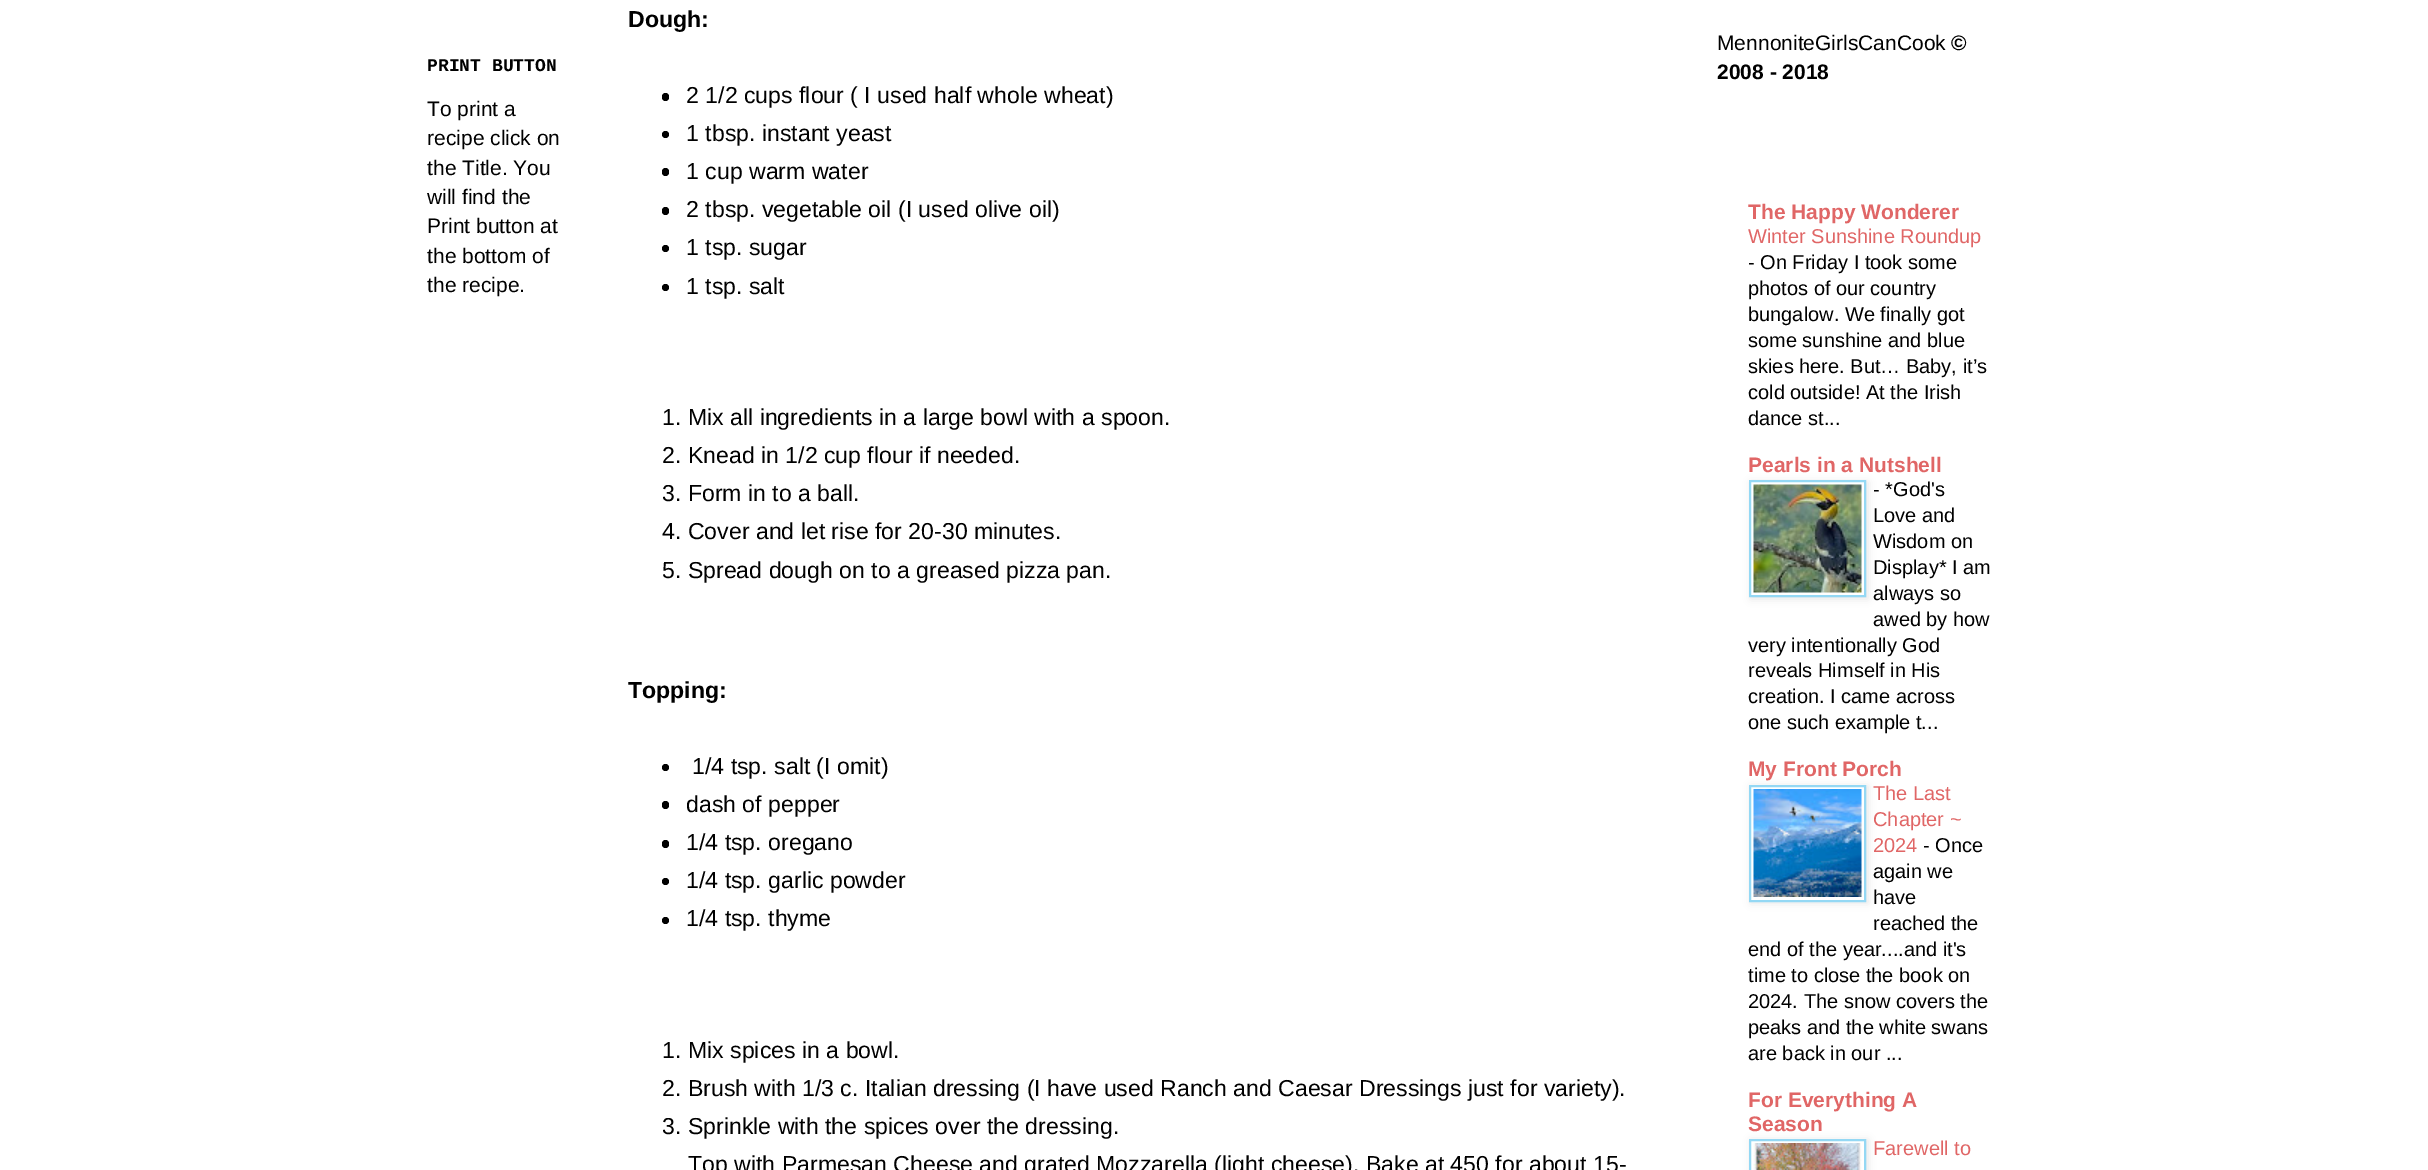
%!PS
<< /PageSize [2428 1170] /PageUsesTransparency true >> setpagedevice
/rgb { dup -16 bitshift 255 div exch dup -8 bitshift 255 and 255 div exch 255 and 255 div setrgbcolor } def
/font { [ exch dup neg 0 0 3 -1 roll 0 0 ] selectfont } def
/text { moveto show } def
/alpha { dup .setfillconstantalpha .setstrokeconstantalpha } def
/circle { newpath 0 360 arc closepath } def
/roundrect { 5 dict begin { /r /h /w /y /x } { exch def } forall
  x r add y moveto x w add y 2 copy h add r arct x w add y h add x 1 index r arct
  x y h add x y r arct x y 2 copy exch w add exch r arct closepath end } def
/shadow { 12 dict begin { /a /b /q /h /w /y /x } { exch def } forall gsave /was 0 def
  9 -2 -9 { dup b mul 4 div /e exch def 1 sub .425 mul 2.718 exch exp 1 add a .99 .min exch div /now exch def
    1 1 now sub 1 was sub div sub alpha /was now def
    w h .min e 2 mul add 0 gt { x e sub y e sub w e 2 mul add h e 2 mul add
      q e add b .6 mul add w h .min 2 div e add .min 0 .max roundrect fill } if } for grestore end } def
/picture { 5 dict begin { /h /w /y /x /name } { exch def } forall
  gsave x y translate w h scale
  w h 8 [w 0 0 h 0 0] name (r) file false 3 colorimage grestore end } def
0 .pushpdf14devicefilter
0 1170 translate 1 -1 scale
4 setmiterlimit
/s1 { /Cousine-Bold 18 font 16#000000 rgb } def
/s2 { /LiberationSans-Regular 21 font 16#000000 rgb } def
/s3 { /LiberationSans-Bold 23.1 font 16#000000 rgb } def
/s4 { /LiberationSans-Regular 23.1 font 16#000000 rgb } def
/s5 { /LiberationSans-Bold 21 font 16#000000 rgb } def
/s6 { /LiberationSans-Bold 21 font 16#E06666 rgb } def
/s7 { /LiberationSans-Regular 20 font 16#E06666 rgb } def
/s8 { /LiberationSans-Regular 20 font 16#000000 rgb } def
16#FFFFFF rgb
0 0 2428 1170 rectfill
s1
(PRINT BUTTON) 427 71 text
s2
(To print a) 427 116 text
(recipe click on) 427 145 text
(the Title. You) 427 175 text
(will find the) 427 204 text
(Print button at) 427 233 text
(the bottom of) 427 263 text
(the recipe.) 427 292 text
s3
(Dough:) 628 27 text
662 93 7 8 3.5 roundrect fill
s4
(2 1/2 cups flour \( I used half whole wheat\)) 686 103 text
665.5 134.5 3.5 circle fill
(1 tbsp. instant yeast) 686 141 text
662 168 7 8 3.5 roundrect fill
(1 cup warm water) 686 179 text
662 207 7 8 3.5 roundrect fill
(2 tbsp. vegetable oil \(I used olive oil\)) 686 217 text
665.5 248.5 3.5 circle fill
(1 tsp. sugar) 686 255 text
665.5 287.5 3.5 circle fill
(1 tsp. salt) 686 294 text
(1. Mix all ingredients in a large bowl with a spoon.) 662 425 text
(2. Knead in 1/2 cup flour if needed.) 662 463 text
(3. Form in to a ball.) 662 501 text
(4. Cover and let rise for 20-30 minutes.) 662 539 text
(5. Spread dough on to a greased pizza pan.) 662 578 text
s3
(Topping:) 628 698 text
665.5 767.5 3.5 circle fill
s4
(1/4 tsp. salt \(I omit\)) 692 774 text
662 801 7 8 3.5 roundrect fill
(dash of pepper) 686 812 text
662 840 7 8 3.5 roundrect fill
(1/4 tsp. oregano) 686 850 text
665.5 881.5 3.5 circle fill
(1/4 tsp. garlic powder) 686 888 text
665.5 920.5 3.5 circle fill
(1/4 tsp. thyme) 686 926 text
(1. Mix spices in a bowl.) 662 1058 text
(2. Brush with 1/3 c. Italian dressing \(I have used Ranch and) 662 1096 text
(Caesar Dressings just for variety\).) 1278 1096 text
(3. Sprinkle with the spices over the dressing.) 662 1134 text
(Top with Parmesan Cheese and grated Mozzarella \(light cheese\). Bake at 450 for about 15-) 688 1172 text
s2
(MennoniteGirlsCanCook) 1717 50 text
s5
(©) 1951 50 text
(2008 - 2018) 1717 79 text
s6
(The Happy Wonderer) 1748 219 text
s7
(Winter Sunshine Roundup) 1748 243 text
s8
(- On Friday I took some) 1748 269 text
(photos of our country) 1748 295 text
(bungalow. We finally got) 1748 321 text
(some sunshine and blue) 1748 347 text
(skies here. But… Baby, it’s) 1748 373 text
(cold outside! At the Irish) 1748 399 text
(dance st...) 1748 425 text
s6
(Pearls in a Nutshell) 1748 472 text
gsave
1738 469 moveto 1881 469 lineto 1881 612 lineto 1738 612 lineto closepath 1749 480 moveto 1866 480 lineto 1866 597 lineto 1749 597 lineto closepath eoclip newpath
16#000000 rgb
1751 482 117 117 0 4 0.1 shadow
grestore
16#94D8F4 rgb
2 setlinewidth
1750 481 115 115 rectstroke
(pic1.raw) 1753 484 109 109 picture
s8
(- *God's) 1873 496 text
(Love and) 1873 522 text
(Wisdom on) 1873 548 text
(Display* I am) 1873 574 text
(always so) 1873 600 text
(awed by how) 1873 626 text
(very intentionally God) 1748 652 text
(reveals Himself in His) 1748 677 text
(creation. I came across) 1748 703 text
(one such example t...) 1748 729 text
s6
(My Front Porch) 1748 776 text
16#000000 rgb
1751 786 117 117 0 4 0.1 shadow
16#FFFFFF rgb
1750 786 moveto 1865 786 lineto 1865 901 lineto 1750 901 lineto closepath gsave fill grestore
16#94D8F4 rgb
stroke
(pic2.raw) 1753 789 109 108 picture
s7
(The Last) 1873 800 text
(Chapter ~) 1873 826 text
(2024) 1873 852 text
s8
(- Once) 1923 852 text
(again we) 1873 878 text
(have) 1873 904 text
(reached the) 1873 930 text
(end of the year....and it's) 1748 956 text
(time to close the book on) 1748 982 text
(2024. The snow covers the) 1748 1008 text
(peaks and the white swans) 1748 1034 text
(are back in our ...) 1748 1060 text
s6
(For Everything A) 1748 1107 text
(Season) 1748 1131 text
gsave
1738 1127 moveto 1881 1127 lineto 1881 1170 lineto 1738 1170 lineto closepath 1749 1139 moveto 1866 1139 lineto 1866 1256 lineto 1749 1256 lineto closepath eoclip newpath
16#000000 rgb
1751 1140 117 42 0 4 0.1 shadow
grestore
16#94D8F4 rgb
1750 1140 115 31 rectstroke
(pic3.raw) 1753 1143 109 27 picture
s7
(Farewell to) 1873 1155 text
.poppdf14devicefilter showpage
